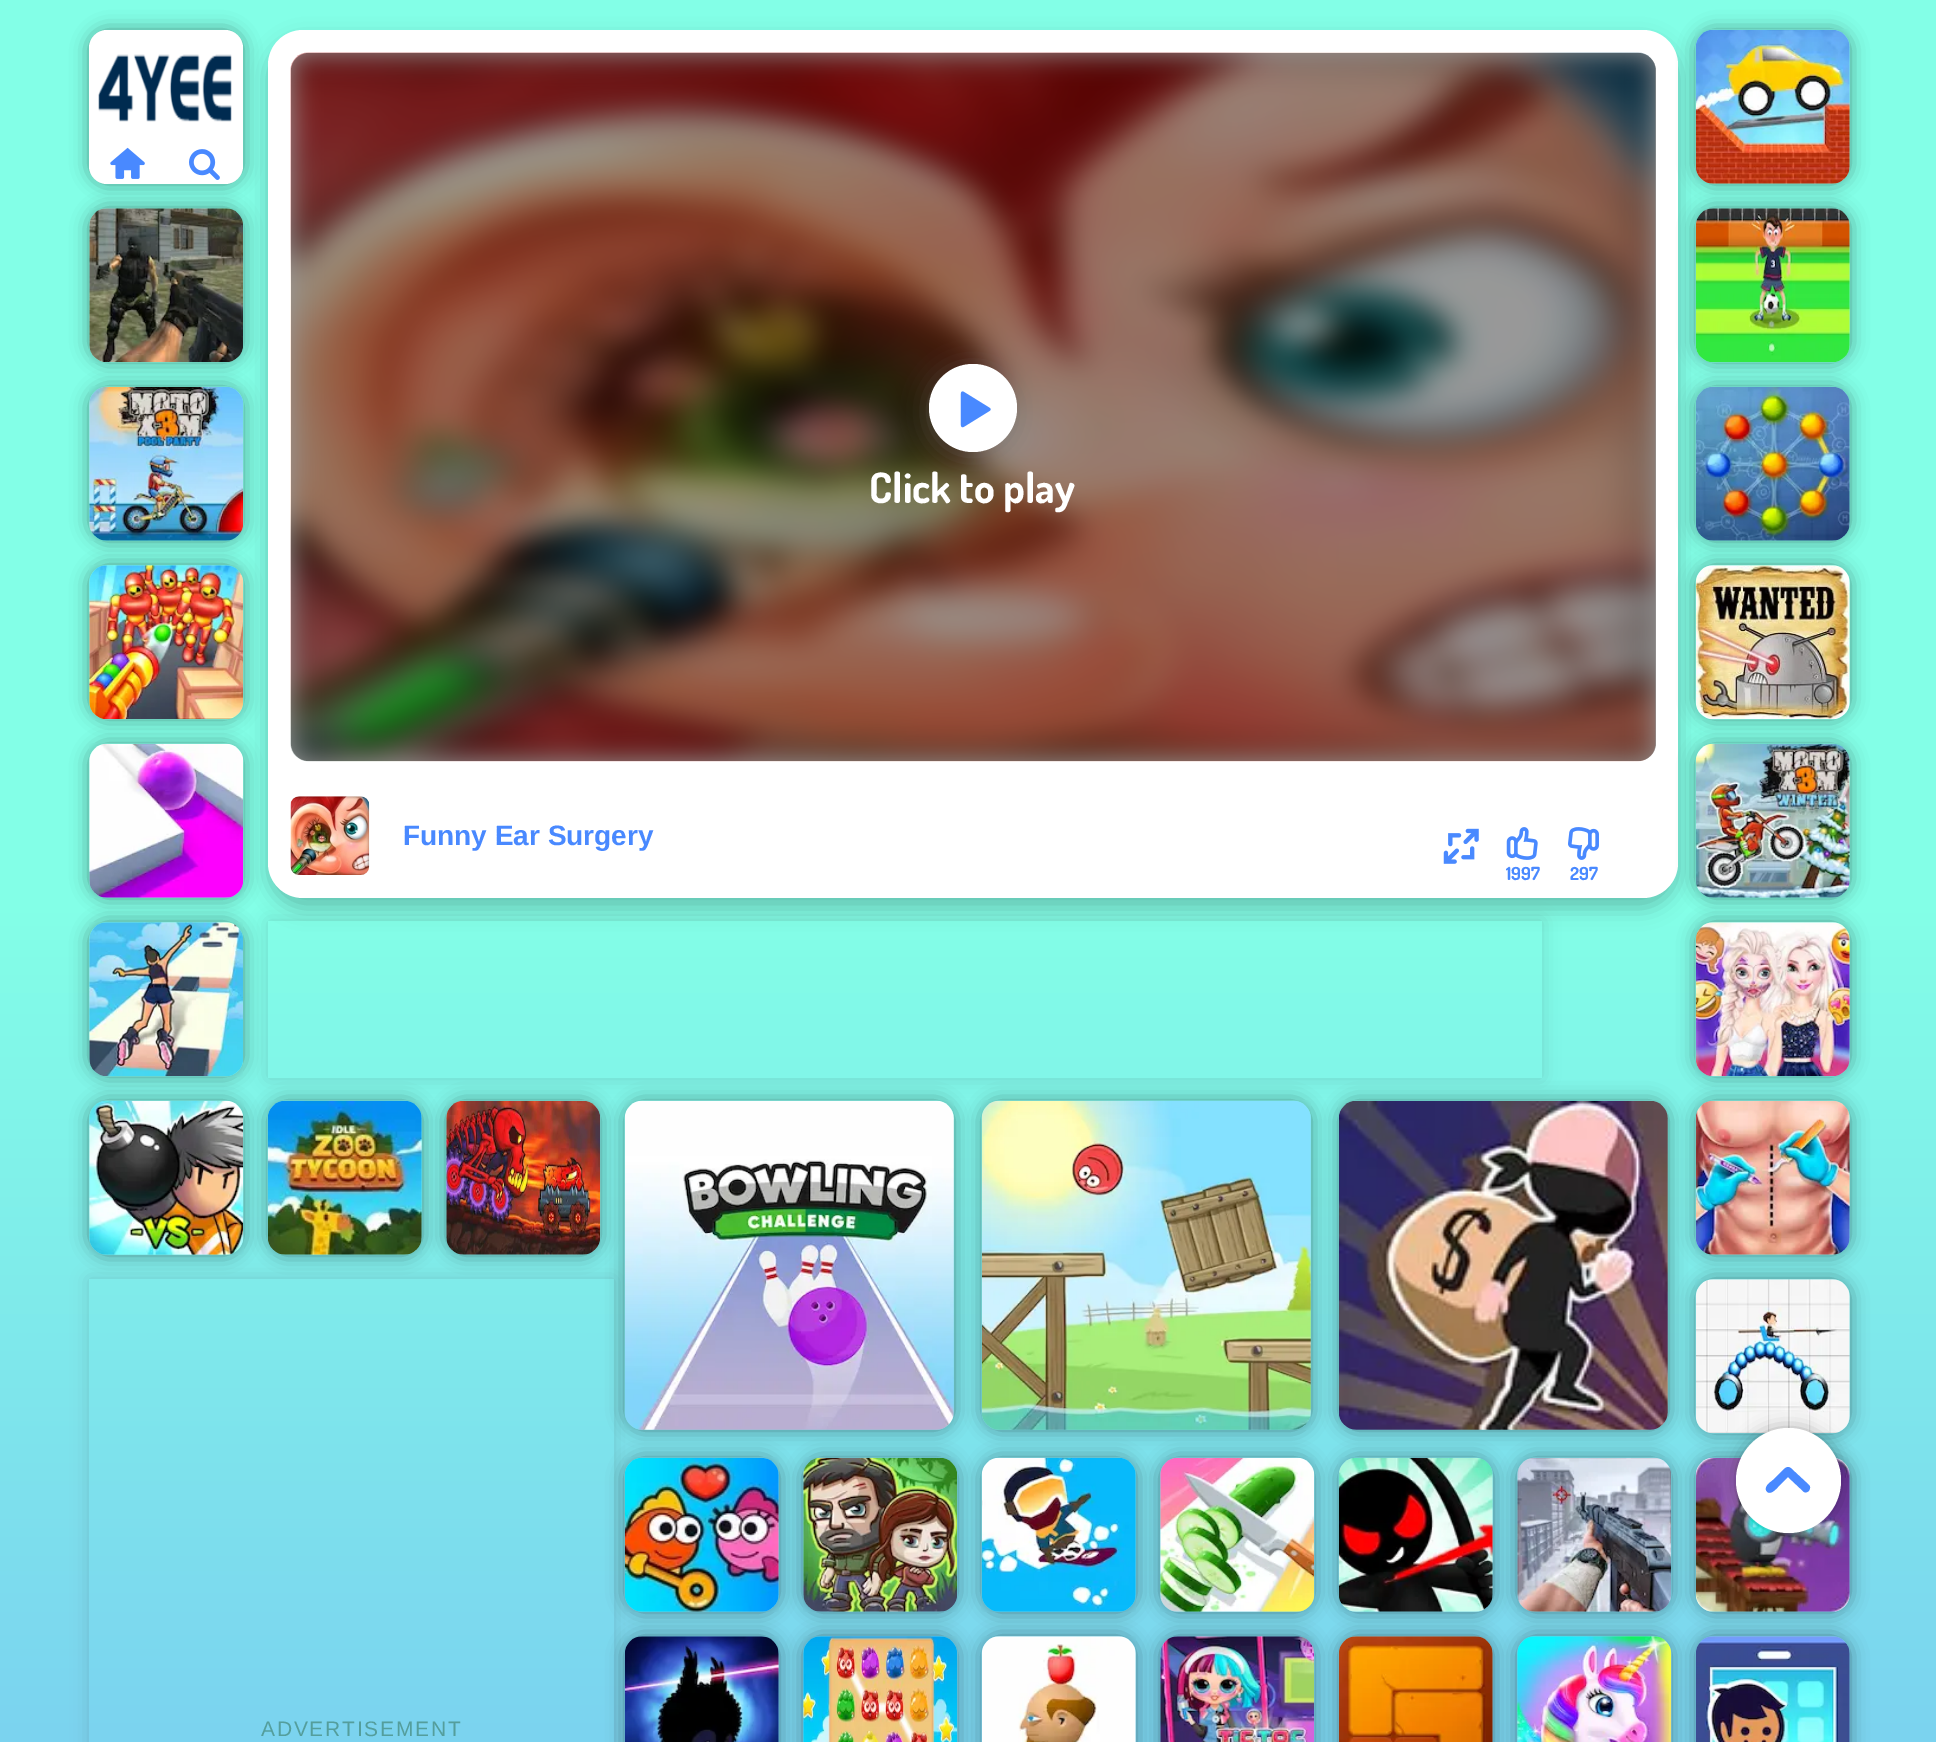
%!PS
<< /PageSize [1936 1742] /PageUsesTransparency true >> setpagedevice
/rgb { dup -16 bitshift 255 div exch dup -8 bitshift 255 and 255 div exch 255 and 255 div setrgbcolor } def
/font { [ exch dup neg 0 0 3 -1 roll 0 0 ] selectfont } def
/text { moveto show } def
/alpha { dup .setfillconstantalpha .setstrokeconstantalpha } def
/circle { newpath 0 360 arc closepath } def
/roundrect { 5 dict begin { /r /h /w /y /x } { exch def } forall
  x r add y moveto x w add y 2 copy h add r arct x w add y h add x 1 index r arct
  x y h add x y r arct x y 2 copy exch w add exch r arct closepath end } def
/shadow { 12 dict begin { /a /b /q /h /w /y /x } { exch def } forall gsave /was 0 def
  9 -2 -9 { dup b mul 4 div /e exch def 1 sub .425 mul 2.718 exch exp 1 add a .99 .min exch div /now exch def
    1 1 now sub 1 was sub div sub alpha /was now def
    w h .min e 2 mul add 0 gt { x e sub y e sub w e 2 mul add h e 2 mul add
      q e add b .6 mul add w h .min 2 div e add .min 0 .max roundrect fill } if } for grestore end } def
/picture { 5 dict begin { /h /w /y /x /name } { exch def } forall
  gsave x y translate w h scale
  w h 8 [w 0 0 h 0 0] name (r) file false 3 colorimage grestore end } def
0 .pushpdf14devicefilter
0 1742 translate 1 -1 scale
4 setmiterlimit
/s1 { /Dosis-Bold 42 font 16#FFFFFF rgb } def
/s2 { /LiberationSans-Bold 28 font 16#4989FF rgb } def
/s3 { /Dosis-Bold 18 font 16#4989FF rgb } def
16#FFFFFF rgb
0 0 1936 1742 rectfill
gsave 0 0 moveto 1936 0 lineto 1936 30 lineto 0 30 lineto closepath clip newpath
<< /ShadingType 2 /ColorSpace /DeviceRGB /Coords [969 0 969 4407] /Extend [true true] /Function << /FunctionType 3 /Domain [0 1] /Functions [<< /FunctionType 2 /Domain [0 1] /C0 [0.514 1 0.906] /C1 [0.514 1 0.906] /N 1 >> << /FunctionType 2 /Domain [0 1] /C0 [0.514 1 0.906] /C1 [0.451 0.659 0.973] /N 1 >> << /FunctionType 2 /Domain [0 1] /C0 [0.451 0.659 0.973] /C1 [0.502 0.459 0.988] /N 1 >>] /Bounds [0.2 0.58] /Encode [0 1 0 1 0 1] >> >> shfill grestore
gsave 0 30 moveto 1936 30 lineto 1936 1742 lineto 0 1742 lineto closepath clip newpath
<< /ShadingType 2 /ColorSpace /DeviceRGB /Coords [969 30 969 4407] /Extend [true true] /Function << /FunctionType 3 /Domain [0 1] /Functions [<< /FunctionType 2 /Domain [0 1] /C0 [0.514 1 0.906] /C1 [0.514 1 0.906] /N 1 >> << /FunctionType 2 /Domain [0 1] /C0 [0.514 1 0.906] /C1 [0.451 0.659 0.973] /N 1 >> << /FunctionType 2 /Domain [0 1] /C0 [0.451 0.659 0.973] /C1 [0.502 0.459 0.988] /N 1 >>] /Bounds [0.2 0.58] /Encode [0 1 0 1 0 1] >> >> shfill grestore
16#000000 rgb
268 40 1410 868 35 10.5 0.24 shadow
gsave
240 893 moveto 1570 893 lineto 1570 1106 lineto 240 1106 lineto closepath 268 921 moveto 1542 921 lineto 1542 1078 lineto 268 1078 lineto closepath eoclip newpath
268 921 1274 157 0 9 0.13 shadow
grestore
16#FFFFFF rgb
268 30 1410 868 35 roundrect fill
16#000000 rgb
89 208 154 154 18 9 0.4 shadow
(pic5.raw) 89 208 155 155 picture
89 30 154 154 18 9 0.4 shadow
16#FFFFFF rgb
89 30 154 154 18 roundrect fill
(pic1.raw) 98 54 134 68 picture
(pic2.raw) 110 147 35 32 picture
(pic3.raw) 189 149 31 31 picture
16#000000 rgb
1696 30 154 154 18 9 0.4 shadow
(pic4.raw) 1695 29 155 155 picture
1696 208 154 154 18 9 0.4 shadow
(pic6.raw) 1695 208 155 155 picture
89 387 154 154 18 9 0.4 shadow
(pic7.raw) 89 386 155 155 picture
(pic8.raw) 290 52 1366 710 picture
0.4 alpha
291 53 1365 708 18 roundrect fill
1 alpha
16#6F6F6F rgb
929 368 88 87 43.5 13 0.5 shadow
16#FFFFFF rgb
973 408 44 circle fill
(pic9.raw) 960 391 31 37 picture
s1
(Click to play) 869 503 text
(pic10.raw) 290 796 80 79 picture
s2
(Funny Ear Surgery) 403 845 text
(pic11.raw) 1443 828 36 36 picture
(pic12.raw) 1506 827 32 33 picture
s3
(1997) 1506 880 text
(pic13.raw) 1568 827 31 33 picture
(297) 1570 880 text
16#000000 rgb
1696 387 154 154 18 9 0.4 shadow
(pic14.raw) 1695 386 155 155 picture
89 565 154 154 18 9 0.4 shadow
(pic15.raw) 89 565 155 155 picture
1696 565 154 154 18 9 0.4 shadow
(pic16.raw) 1695 565 155 155 picture
89 744 154 154 18 9 0.4 shadow
(pic17.raw) 89 743 155 155 picture
1696 744 154 154 18 9 0.4 shadow
(pic18.raw) 1695 743 155 155 picture
89 922 154 154 18 9 0.4 shadow
(pic19.raw) 89 922 154 155 picture
1696 922 154 154 18 9 0.4 shadow
1339 1101 329 329 18 9 0.4 shadow
(pic20.raw) 1695 922 155 155 picture
89 1101 154 154 18 9 0.4 shadow
gsave
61 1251 moveto 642 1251 lineto 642 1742 lineto 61 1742 lineto closepath 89 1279 moveto 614 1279 lineto 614 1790 lineto 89 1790 lineto closepath eoclip newpath
89 1279 525 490 0 9 0.13 shadow
grestore
(pic21.raw) 89 1100 155 155 picture
268 1101 154 154 18 9 0.4 shadow
(pic22.raw) 267 1100 155 155 picture
625 1101 329 329 18 9 0.4 shadow
(pic24.raw) 624 1100 330 330 picture
446 1101 154 154 18 9 0.4 shadow
(pic23.raw) 446 1100 155 155 picture
982 1101 329 329 18 9 0.4 shadow
(pic25.raw) 981 1100 330 330 picture
(pic26.raw) 1338 1100 330 330 picture
1696 1101 154 154 18 9 0.4 shadow
(pic27.raw) 1695 1100 155 155 picture
1696 1279 154 154 18 9 0.4 shadow
(pic28.raw) 1695 1279 155 155 picture
625 1458 154 154 18 9 0.4 shadow
(pic29.raw) 624 1457 155 155 picture
803 1458 154 154 18 9 0.4 shadow
(pic30.raw) 803 1457 155 155 picture
982 1458 154 154 18 9 0.4 shadow
(pic31.raw) 981 1457 155 155 picture
1160 1458 154 154 18 9 0.4 shadow
(pic32.raw) 1160 1457 155 155 picture
1339 1458 154 154 18 9 0.4 shadow
(pic33.raw) 1338 1457 155 155 picture
1517 1458 154 154 18 9 0.4 shadow
(pic34.raw) 1517 1457 155 155 picture
1696 1458 154 154 18 9 0.4 shadow
(pic35.raw) 1695 1457 155 155 picture
/LiberationSans-Regular 21 font
16#549E9C rgb
261 1736 moveto 1.75 0 (ADVERTISEMENT) ashow
16#000000 rgb
625 1636 154 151 18 9 0.4 shadow
(pic36.raw) 624 1636 155 106 picture
803 1636 154 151 18 9 0.4 shadow
(pic37.raw) 803 1636 155 106 picture
982 1636 154 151 18 9 0.4 shadow
(pic38.raw) 981 1636 155 106 picture
1160 1636 154 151 18 9 0.4 shadow
(pic39.raw) 1160 1636 155 106 picture
1339 1636 154 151 18 9 0.4 shadow
(pic40.raw) 1338 1636 155 106 picture
1517 1636 154 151 18 9 0.4 shadow
(pic41.raw) 1517 1636 155 106 picture
1696 1636 154 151 18 9 0.4 shadow
(pic42.raw) 1695 1636 155 106 picture
1736 1428 105 105 52.5 9 0.3 shadow
16#FFFFFF rgb
1788.5 1480.5 52.5 circle fill
16#4989FF rgb
1809 1485 moveto 1812 1488 1808 1494 1804 1492 curveto 1788 1477 lineto 1778 1487 lineto 1776 1489 1769 1497 1766 1490 curveto 1765 1485 1771 1482 1773 1480 curveto 1782 1471 lineto 1788 1465 1789 1466 1795 1472 curveto closepath fill
.poppdf14devicefilter showpage
